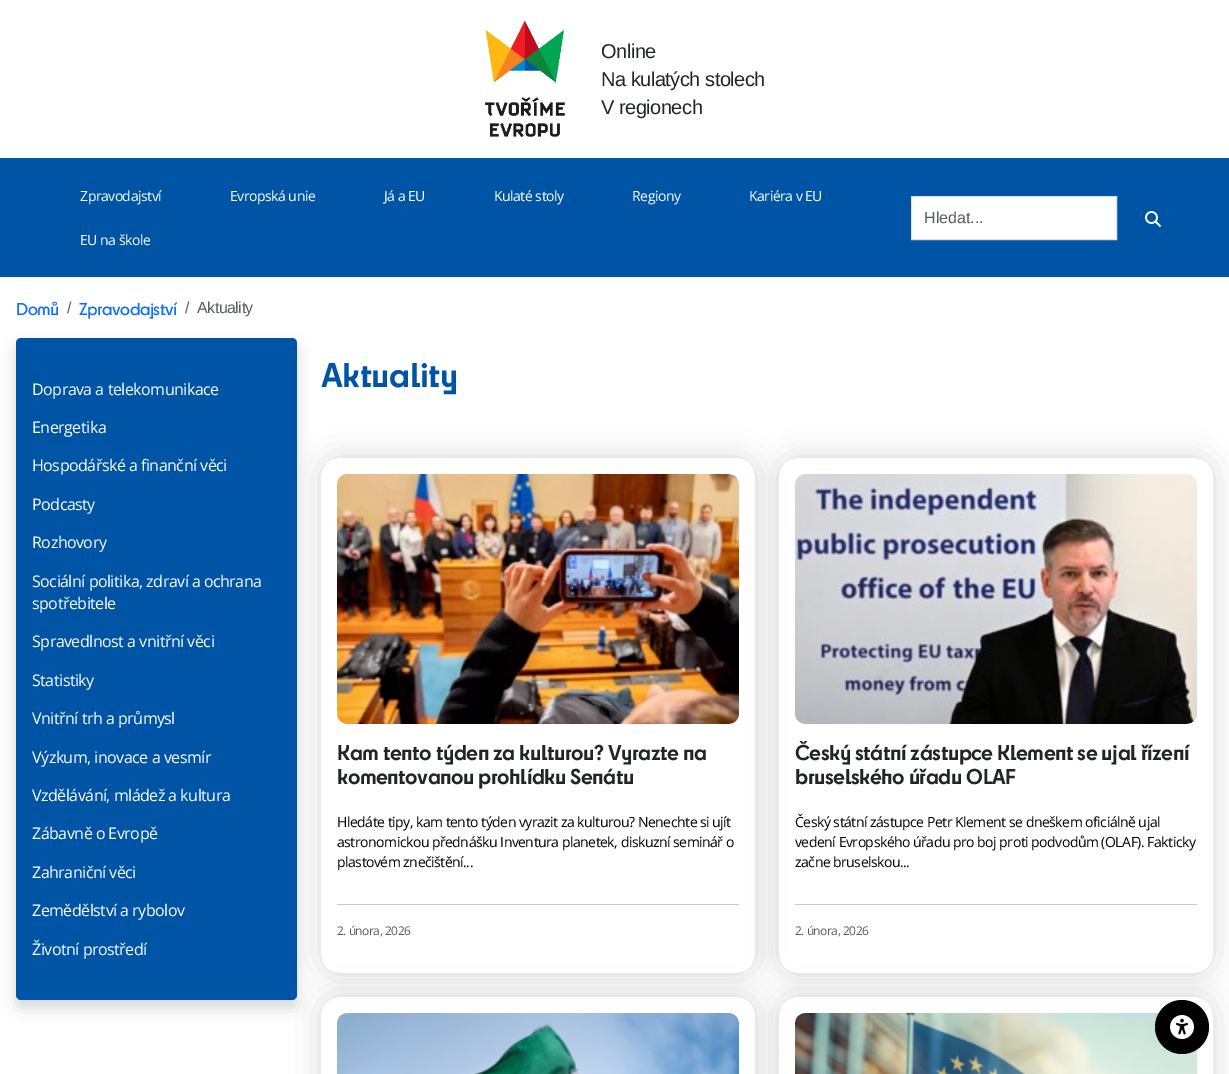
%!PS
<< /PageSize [1229 1074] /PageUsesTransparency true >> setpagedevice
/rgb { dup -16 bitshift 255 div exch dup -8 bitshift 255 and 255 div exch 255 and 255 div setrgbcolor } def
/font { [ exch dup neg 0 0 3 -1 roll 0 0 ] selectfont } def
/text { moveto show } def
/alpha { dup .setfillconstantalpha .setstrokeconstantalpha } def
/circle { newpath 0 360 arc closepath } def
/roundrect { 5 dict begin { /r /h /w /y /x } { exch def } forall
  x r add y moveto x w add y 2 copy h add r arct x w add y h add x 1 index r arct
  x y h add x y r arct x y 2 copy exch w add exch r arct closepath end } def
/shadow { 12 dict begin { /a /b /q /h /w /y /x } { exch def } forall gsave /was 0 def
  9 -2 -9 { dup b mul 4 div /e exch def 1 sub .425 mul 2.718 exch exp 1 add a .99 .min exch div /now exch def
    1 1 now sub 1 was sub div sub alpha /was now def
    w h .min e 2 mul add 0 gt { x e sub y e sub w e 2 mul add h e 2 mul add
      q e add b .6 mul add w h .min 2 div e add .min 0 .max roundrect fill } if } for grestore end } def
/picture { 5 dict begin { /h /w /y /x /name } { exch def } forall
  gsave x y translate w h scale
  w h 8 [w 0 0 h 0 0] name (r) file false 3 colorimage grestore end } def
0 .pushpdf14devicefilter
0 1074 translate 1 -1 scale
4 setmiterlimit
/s1 { /LiberationSans-Regular 16 font 16#595C5F rgb } def
16#FFFFFF rgb
0 0 1229 1074 rectfill
(pic1.raw) 485 20 80 117 picture
/LiberationSans-Regular 20 font
16#212529 rgb
601 58 moveto -0.5 0 (Online) ashow
601 86 moveto -0.5 0 (Na kulatých stolech) ashow
601 114 moveto -0.5 0 (V regionech) ashow
16#0054A6 rgb
0 158 1229 119 rectfill
/OpenSans-Regular 14 font
16#FFFFFF rgb
80 201 moveto -0.5 0 (Zpravodajství) ashow
230 201 moveto -0.5 0 (Evropská unie) ashow
384 201 moveto -0.5 0 (Já a EU) ashow
494 201 moveto -0.5 0 (Kulaté stoly) ashow
632 201 moveto -0.5 0 (Regiony) ashow
749 201 moveto -0.5 0 (Kariéra v EU) ashow
80 245 moveto -0.5 0 (EU na škole) ashow
911.5 196.5 moveto 1116.5 196.5 lineto 1116.5 239.5 lineto 911.5 239.5 lineto closepath gsave fill grestore
16#DEE2E6 rgb
stroke
s1
(Hledat...) 924 223 text
(pic2.raw) 1145 211 16 16 picture
/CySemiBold-SemiBold 16 font
16#0D6EFD rgb
16 315 moveto -0.5 0 (Domů) ashow
/LiberationSans-Regular 16 font
16#595C5F rgb
67 313 moveto -0.5 0 (/) ashow
/CySemiBold-SemiBold 16 font
16#0D6EFD rgb
79 315 moveto -0.5 0 (Zpravodajství) ashow
/LiberationSans-Regular 16 font
16#595C5F rgb
185 313 moveto -0.5 0 (/) ashow
197 313 moveto -0.5 0 (Aktuality) ashow
16#000000 rgb
16 346 281 662 5 7.5 0.15 shadow
16#0054A6 rgb
16 338 281 662 5 roundrect fill
/OpenSans-Regular 16 font
16#FFFFFF rgb
32 395 moveto -0.5 0 (Doprava a telekomunikace) ashow
32 433 moveto -0.5 0 (Energetika) ashow
32 471 moveto -0.5 0 (Hospodářské a finanční věci) ashow
32 510 moveto -0.5 0 (Podcasty) ashow
32 548 moveto -0.5 0 (Rozhovory) ashow
32 587 moveto -0.5 0 (Sociální politika, zdraví a ochrana) ashow
32 609 moveto -0.5 0 (spotřebitele) ashow
32 647 moveto -0.5 0 (Spravedlnost a vnitřní věci) ashow
32 686 moveto -0.5 0 (Statistiky) ashow
32 724 moveto -0.5 0 (Vnitřní trh a průmysl) ashow
32 763 moveto -0.5 0 (Výzkum, inovace a vesmír) ashow
32 801 moveto -0.5 0 (Vzdělávání, mládež a kultura) ashow
32 839 moveto -0.5 0 (Zábavně o Evropě) ashow
32 878 moveto -0.5 0 (Zahraniční věci) ashow
32 916 moveto -0.5 0 (Zemědělství a rybolov) ashow
32 955 moveto -0.5 0 (Životní prostředí) ashow
/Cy-Bold 32 font
16#0054A6 rgb
321 387 moveto -0.5 0 (Aktuality) ashow
gsave
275 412 moveto 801 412 lineto 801 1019 lineto 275 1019 lineto closepath 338 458 moveto 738 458 lineto 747.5 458 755 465.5 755 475 curveto 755 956 lineto 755 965.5 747.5 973 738 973 curveto 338 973 lineto 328.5 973 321 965.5 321 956 curveto 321 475 lineto 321 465.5 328.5 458 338 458 curveto closepath eoclip newpath
16#000000 rgb
321 458 434 515 17 15 0.15 shadow
grestore
gsave
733 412 moveto 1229 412 lineto 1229 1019 lineto 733 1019 lineto closepath 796 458 moveto 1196 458 lineto 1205.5 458 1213 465.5 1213 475 curveto 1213 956 lineto 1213 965.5 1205.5 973 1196 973 curveto 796 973 lineto 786.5 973 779 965.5 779 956 curveto 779 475 lineto 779 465.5 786.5 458 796 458 curveto closepath eoclip newpath
16#000000 rgb
779 458 434 515 17 15 0.15 shadow
grestore
(pic3.raw) 337 474 402 250 picture
/Cy-Bold 20 font
16#212529 rgb
337 760 moveto -0.5 0 (Kam tento týden za kulturou? Vyrazte na) ashow
337 784 moveto -0.5 0 (komentovanou prohlídku Senátu) ashow
/OpenSans-Regular 14 font
16#000000 rgb
337 827 moveto -0.5 0 (Hledáte tipy, kam tento týden vyrazit za kulturou? Nenechte si ujít) ashow
337 847 moveto -0.5 0 (astronomickou přednášku Inventura planetek, diskuzní seminář o) ashow
337 867 moveto -0.5 0 (plastovém znečištění...) ashow
16#C7C8C9 rgb
337 904 402 1 rectfill
/OpenSans-Regular 12 font
16#595C5F rgb
337 935 moveto -0.5 0 (2. února, 2026) ashow
(pic4.raw) 795 474 402 250 picture
/Cy-Bold 20 font
16#212529 rgb
795 760 moveto -0.5 0 (Český státní zástupce Klement se ujal řízení) ashow
795 784 moveto -0.5 0 (bruselského úřadu OLAF) ashow
/OpenSans-Regular 14 font
16#000000 rgb
795 827 moveto -0.5 0 (Český státní zástupce Petr Klement se dneškem oficiálně ujal) ashow
795 847 moveto -0.5 0 (vedení Evropského úřadu pro boj proti podvodům \(OLAF\). Fakticky) ashow
795 867 moveto -0.5 0 (začne bruselskou...) ashow
16#C7C8C9 rgb
795 904 402 1 rectfill
/OpenSans-Regular 12 font
16#595C5F rgb
795 935 moveto -0.5 0 (2. února, 2026) ashow
gsave
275 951 moveto 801 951 lineto 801 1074 lineto 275 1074 lineto closepath 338 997 moveto 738 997 lineto 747.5 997 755 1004.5 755 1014 curveto 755 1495 lineto 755 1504.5 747.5 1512 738 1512 curveto 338 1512 lineto 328.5 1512 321 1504.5 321 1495 curveto 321 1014 lineto 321 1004.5 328.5 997 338 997 curveto closepath eoclip newpath
16#000000 rgb
321 997 434 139 17 15 0.15 shadow
grestore
gsave
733 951 moveto 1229 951 lineto 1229 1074 lineto 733 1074 lineto closepath 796 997 moveto 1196 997 lineto 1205.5 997 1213 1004.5 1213 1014 curveto 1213 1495 lineto 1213 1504.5 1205.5 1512 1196 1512 curveto 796 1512 lineto 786.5 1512 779 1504.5 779 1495 curveto 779 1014 lineto 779 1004.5 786.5 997 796 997 curveto closepath eoclip newpath
16#000000 rgb
779 997 434 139 17 15 0.15 shadow
grestore
(pic5.raw) 337 1013 402 61 picture
(pic6.raw) 795 1013 402 61 picture
16#000000 rgb
1182 1027 27 circle fill
(pic7.raw) 1170 1015 24 24 picture
.poppdf14devicefilter showpage
